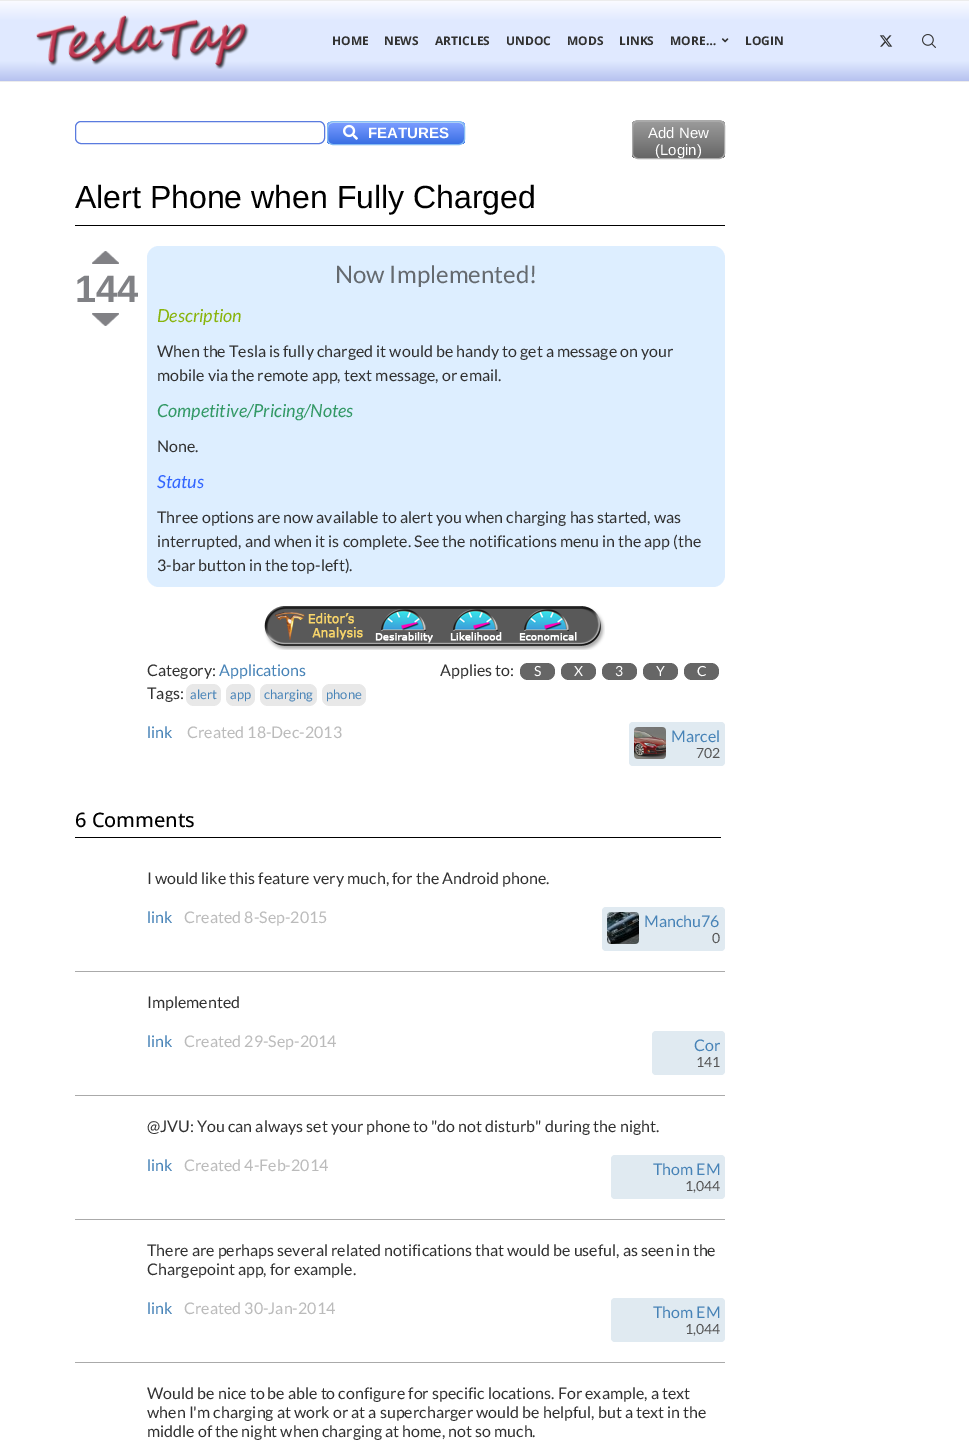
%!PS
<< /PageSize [969 1449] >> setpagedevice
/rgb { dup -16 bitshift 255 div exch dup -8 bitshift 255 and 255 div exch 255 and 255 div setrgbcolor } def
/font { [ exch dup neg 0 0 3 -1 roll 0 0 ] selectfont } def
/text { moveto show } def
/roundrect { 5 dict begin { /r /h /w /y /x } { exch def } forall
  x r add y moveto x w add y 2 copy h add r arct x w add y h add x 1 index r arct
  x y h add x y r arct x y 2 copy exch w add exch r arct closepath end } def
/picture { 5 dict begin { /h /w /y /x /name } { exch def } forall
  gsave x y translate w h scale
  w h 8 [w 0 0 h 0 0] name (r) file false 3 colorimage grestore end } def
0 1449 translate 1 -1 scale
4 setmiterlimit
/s1 { /OpenSans-Bold 12 font 16#313131 rgb } def
/s2 { /LiberationSans-Bold 15 font 16#FFFFFF rgb } def
/s3 { /LiberationSans-Regular 15 font 16#FFFFFF rgb } def
/s4 { /LiberationSans-Regular 32 font 16#000000 rgb } def
/s5 { /LiberationSans-Bold 38 font 16#808185 rgb } def
/s6 { /Lato-Regular 24 font 16#656A6F rgb } def
/s7 { /Lato-Italic 18 font 16#89B40C rgb } def
/s8 { /Lato-Regular 16 font 16#313131 rgb } def
/s9 { /Lato-Italic 18 font 16#339966 rgb } def
/s10 { /Lato-Italic 18 font 16#3366FF rgb } def
/s11 { /Lato-Regular 16 font 16#4783B7 rgb } def
/s12 { /Lato-Regular 14 font 16#FFFFFF rgb } def
/s13 { /Lato-Regular 13 font 16#4783B7 rgb } def
/s14 { /Lato-Regular 16 font 16#BBBBBB rgb } def
/s15 { /Lato-Regular 14 font 16#555555 rgb } def
/s16 { /OpenSans-Medium 20 font 16#000000 rgb } def
16#FFFFFF rgb
0 0 969 1449 rectfill
gsave 0 1 moveto 969 1 lineto 969 81 lineto 0 81 lineto closepath clip newpath
<< /ShadingType 2 /ColorSpace /DeviceRGB /Coords [485 1 485 81] /Extend [true true] /Function << /FunctionType 3 /Domain [0 1] /Functions [<< /FunctionType 2 /Domain [0 1] /C0 [0.98 0.984 1] /C1 [0.878 0.914 1] /N 1 >> << /FunctionType 2 /Domain [0 1] /C0 [0.878 0.914 1] /C1 [0.878 0.914 1] /N 1 >> << /FunctionType 2 /Domain [0 1] /C0 [0.878 0.914 1] /C1 [0.714 0.757 0.937] /N 1 >>] /Bounds [0.25 0.75] /Encode [0 1 0 1 0 1] >> >> shfill grestore
16#ECECEC rgb
0 0 969 1 rectfill
0 81 969 1 rectfill
(pic1.raw) 36 15 213 54 picture
s1
(HOME) 332 45 text
(NEWS) 384 45 text
(ARTICLES) 435 45 text
(UNDOC) 506 45 text
(MODS) 567 45 text
(LINKS) 619 45 text
(MORE…) 670 45 text
(pic2.raw) 721 38 8 5 picture
(LOGIN) 745 45 text
(pic3.raw) 879 35 14 12 picture
(pic4.raw) 922 34 14 14 picture
16#5A7BDF rgb
75.5 121.5 249 22 5.5 roundrect stroke
gsave
327 121 138 24 6 roundrect clip newpath
gsave 327 122 moveto 465 122 lineto 465 144 lineto 327 144 lineto closepath clip newpath
<< /ShadingType 2 /ColorSpace /DeviceRGB /Coords [328 122 328 144] /Extend [true true] /Function << /FunctionType 3 /Domain [0 1] /Functions [<< /FunctionType 2 /Domain [0 1] /C0 [0.478 0.608 1] /C1 [0.478 0.608 1] /N 1 >> << /FunctionType 2 /Domain [0 1] /C0 [0.478 0.608 1] /C1 [0.224 0.435 0.89] /N 1 >>] /Bounds [0.05] /Encode [0 1 0 1] >> >> shfill grestore
grestore
16#BBDAF7 rgb
333 123 moveto 459 123 lineto 462 123 464 125 464 128 curveto 464 127 lineto 464 124 462 122 459 122 curveto 333 122 lineto 330 122 328 124 328 127 curveto 328 128 lineto 328 125 330 123 333 123 curveto closepath fill
16#84BBF3 rgb
327.5 121.5 137 23 5.5 roundrect stroke
(pic5.raw) 343 124 15 16 picture
s2
(FEATURES) 368 138 text
gsave
632 120 93 39 6 roundrect clip newpath
gsave 632 121 moveto 725 121 lineto 725 158 lineto 632 158 lineto closepath clip newpath
<< /ShadingType 2 /ColorSpace /DeviceRGB /Coords [633 121 633 158] /Extend [true true] /Function << /FunctionType 3 /Domain [0 1] /Functions [<< /FunctionType 2 /Domain [0 1] /C0 [0.6 0.6 0.6] /C1 [0.6 0.6 0.6] /N 1 >> << /FunctionType 2 /Domain [0 1] /C0 [0.6 0.6 0.6] /C1 [0.4 0.4 0.4] /N 1 >>] /Bounds [0.05] /Encode [0 1 0 1] >> >> shfill grestore
grestore
16#AAAAAA rgb
638 122 moveto 719 122 lineto 722 122 724 124 724 127 curveto 724 118 711 121 706 121 curveto 652 121 lineto 646 121 633 118 633 127 curveto 633 124 635 122 638 122 curveto closepath fill
632.5 120.5 92 38 5.5 roundrect stroke
s3
(Add New) 648 138 text
(\(Login\)) 655 155 text
16#000000 rgb
75 225 650 1 rectfill
s4
(Alert Phone when Fully Charged) 75 208 text
(pic6.raw) 92 251 27 13 picture
s5
(144) 75 302 text
(pic7.raw) 92 313 27 13 picture
16#DDEEFF rgb
147 246 578 341 12 roundrect fill
s6
(Now Implemented!) 335 283 text
s7
(Description) 157 322 text
s8
(When the Tesla is fully charged it would be handy to get a message on your) 157 357 text
(mobile via the remote app, text message, or email.) 157 381 text
s9
(Competitive/Pricing/Notes) 157 417 text
s8
(None.) 157 452 text
s10
(Status) 157 488 text
s8
(Three options are now available to alert you when charging has started, was) 157 523 text
(interrupted, and when it is complete. See the notifications menu in the app \(the) 157 547 text
(3-bar button in the top-left\).) 157 571 text
(pic8.raw) 264 606 341 44 picture
(pic9.raw) 381 609 45 22 picture
(pic9.raw) 453 609 45 22 picture
(pic9.raw) 524 609 45 22 picture
(Category:) 147 676 text
s11
(Applications) 219 676 text
s8
(Applies to:) 440 676 text
16#666666 rgb
520 663 35 17 8 roundrect fill
s12
(S) 534 676 text
16#666666 rgb
561 663 35 17 8 roundrect fill
s12
(X) 574 676 text
16#666666 rgb
602 663 35 17 8 roundrect fill
s12
(3) 615 676 text
16#666666 rgb
643 663 35 17 8 roundrect fill
s12
(Y) 656 676 text
16#666666 rgb
684 663 35 17 8 roundrect fill
s12
(C) 697 676 text
s8
(Tags:) 147 699 text
16#E8E8E8 rgb
186 684 35 22 8 roundrect fill
s13
(alert) 190 699 text
16#E8E8E8 rgb
226 684 29 22 8 roundrect fill
s13
(app) 230 699 text
16#E8E8E8 rgb
260 684 57 22 8 roundrect fill
s13
(charging) 264 699 text
16#E8E8E8 rgb
322 684 44 22 8 roundrect fill
s13
(phone) 326 699 text
s11
(link) 147 738 text
s14
(Created 18-Dec-2013) 187 738 text
16#E0EAF1 rgb
629 722 96 44 4 roundrect fill
(pic10.raw) 634 727 32 32 picture
s11
(Marcel) 671 742 text
s15
(702) 696 758 text
16#000000 rgb
75 837 646 1 rectfill
s16
(6 Comments) 75 827 text
16#AAAAAA rgb
75 971 650 1 rectfill
s8
(I would like this feature very much, for the Android phone.) 147 884 text
s11
(link) 147 923 text
s14
(Created 8-Sep-2015) 184 923 text
16#E0EAF1 rgb
602 907 123 44 4 roundrect fill
(pic11.raw) 607 912 32 32 picture
s11
(Manchu76) 644 927 text
s15
(0) 712 943 text
16#AAAAAA rgb
75 1095 650 1 rectfill
s8
(Implemented) 147 1008 text
s11
(link) 147 1047 text
s14
(Created 29-Sep-2014) 184 1047 text
16#E0EAF1 rgb
652 1031 73 44 4 roundrect fill
s11
(Cor) 694 1051 text
s15
(141) 696 1067 text
16#AAAAAA rgb
75 1219 650 1 rectfill
s8
(@JVU: You can always set your phone to "do not disturb" during the night.) 147 1132 text
s11
(link) 147 1171 text
s14
(Created 4-Feb-2014) 184 1171 text
16#E0EAF1 rgb
611 1155 114 44 4 roundrect fill
s11
(Thom EM) 653 1175 text
s15
(1,044) 685 1191 text
16#AAAAAA rgb
75 1362 650 1 rectfill
s8
(There are perhaps several related notifications that would be useful, as seen in the) 147 1256 text
(Chargepoint app, for example.) 147 1275 text
s11
(link) 147 1314 text
s14
(Created 30-Jan-2014) 184 1314 text
16#E0EAF1 rgb
611 1298 114 44 4 roundrect fill
s11
(Thom EM) 653 1318 text
s15
(1,044) 685 1334 text
s8
(Would be nice to be able to configure for specific locations. For example, a text) 147 1399 text
(when I'm charging at work or at a supercharger would be helpful, but a text in the) 147 1418 text
(middle of the night when charging at home, not so much.) 147 1437 text
showpage
